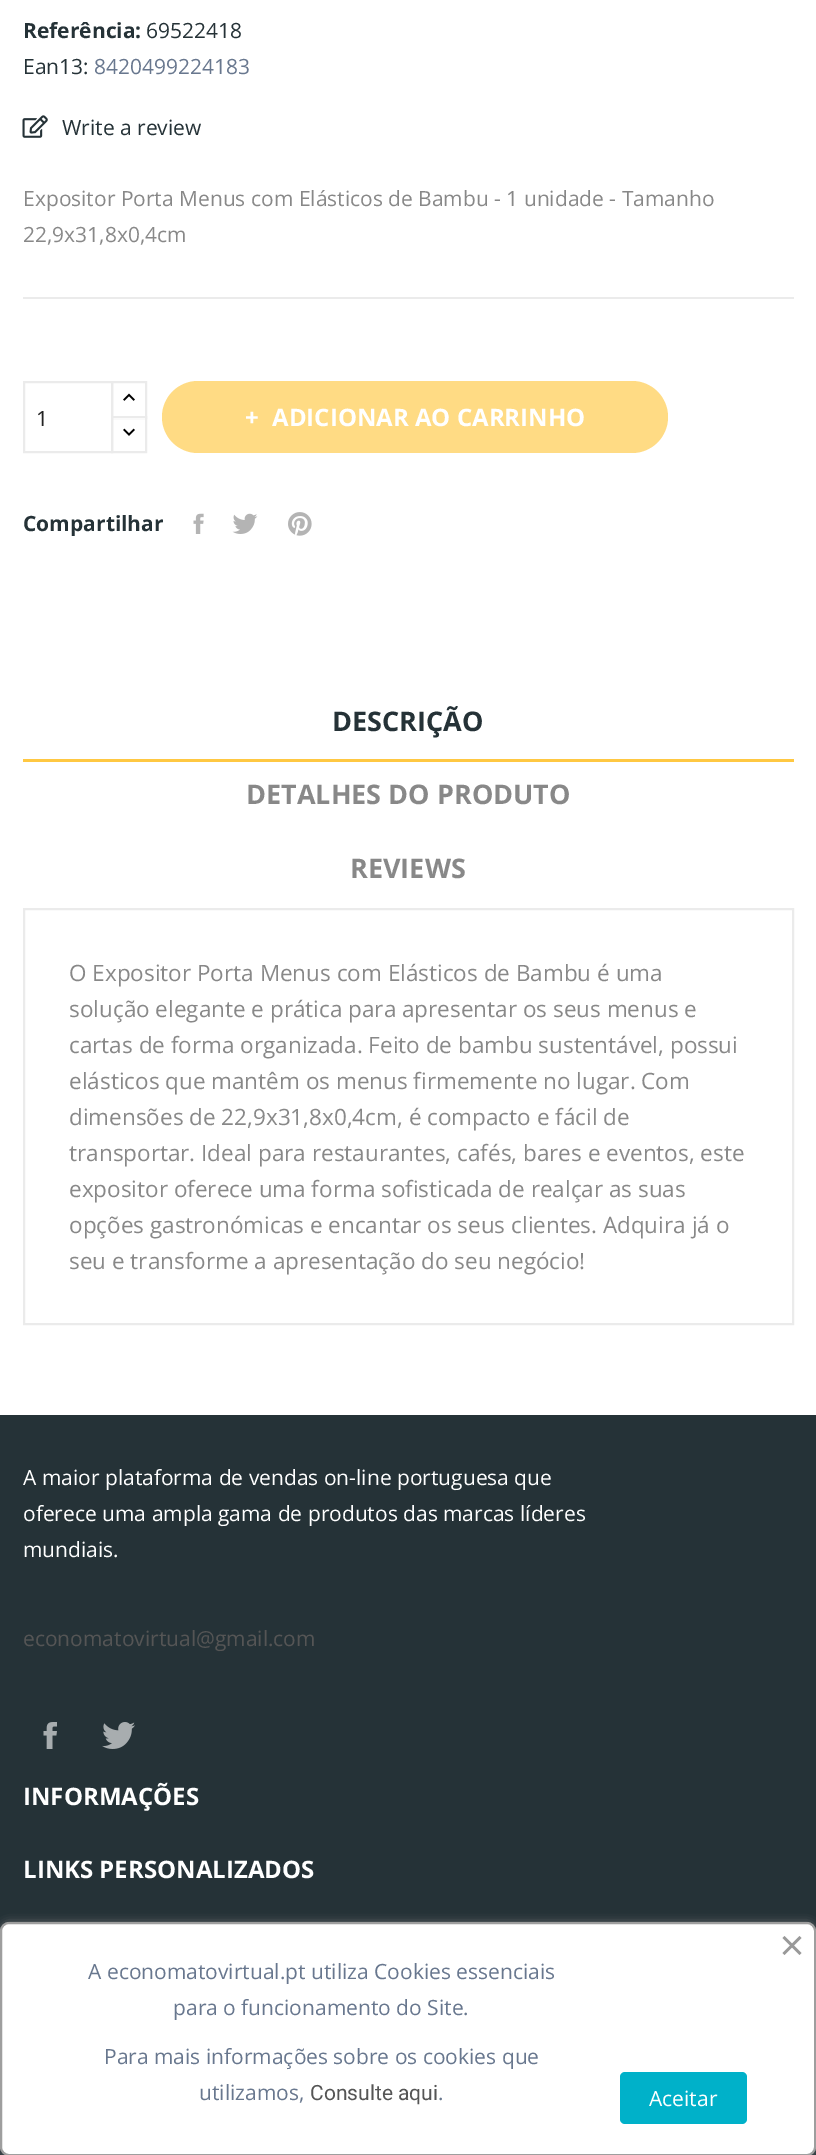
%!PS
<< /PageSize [816 2155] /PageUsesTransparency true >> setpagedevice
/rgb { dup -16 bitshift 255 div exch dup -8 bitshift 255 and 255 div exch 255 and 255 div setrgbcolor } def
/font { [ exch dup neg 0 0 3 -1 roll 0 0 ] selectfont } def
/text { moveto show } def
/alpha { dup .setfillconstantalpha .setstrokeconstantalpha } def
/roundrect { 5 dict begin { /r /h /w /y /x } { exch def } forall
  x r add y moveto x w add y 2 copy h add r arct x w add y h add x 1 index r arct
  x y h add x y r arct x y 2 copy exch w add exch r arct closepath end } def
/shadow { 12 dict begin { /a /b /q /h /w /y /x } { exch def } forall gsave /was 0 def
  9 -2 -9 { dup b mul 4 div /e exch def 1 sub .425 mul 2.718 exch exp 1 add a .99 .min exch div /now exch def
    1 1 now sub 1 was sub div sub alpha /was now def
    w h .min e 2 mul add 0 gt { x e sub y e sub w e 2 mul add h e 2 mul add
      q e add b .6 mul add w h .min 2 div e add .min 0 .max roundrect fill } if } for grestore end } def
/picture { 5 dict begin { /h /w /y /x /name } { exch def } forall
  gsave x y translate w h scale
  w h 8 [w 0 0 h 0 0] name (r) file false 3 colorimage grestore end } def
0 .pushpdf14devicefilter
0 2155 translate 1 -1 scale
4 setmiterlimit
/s1 { /OpenSans-Bold 21 font 16#253237 rgb } def
/s2 { /OpenSans-Regular 21 font 16#253237 rgb } def
/s3 { /OpenSans-Regular 21 font 16#68778E rgb } def
/s4 { /OpenSans-Regular 21 font 16#888888 rgb } def
/s5 { /OpenSans-Regular 21 font 16#232323 rgb } def
/s6 { /OpenSans-Bold 24 font 16#FFFFFF rgb } def
/s7 { /OpenSans-Bold 27 font 16#253237 rgb } def
/s8 { /OpenSans-Bold 27 font 16#888888 rgb } def
/s9 { /OpenSans-Regular 22.5 font 16#888888 rgb } def
/s10 { /OpenSans-Regular 21 font 16#FFFFFF rgb } def
/s11 { /OpenSans-Regular 21 font 16#555555 rgb } def
/s12 { /Roboto-Regular 21 font 16#555555 rgb } def
16#FFFFFF rgb
0 0 816 2155 rectfill
s1
(Referência:) 23 38 text
s2
(69522418) 146 38 text
(Ean13:) 23 74 text
s3
(8420499224183) 94 74 text
(pic1.raw) 22 115 26 23 picture
s2
(Write a review) 62 135 text
16#EBEBEB rgb
23 297 771 2 rectfill
s4
(Expositor Porta Menus com Elásticos de Bambu - 1 unidade - Tamanho) 23 206 text
(22,9x31,8x0,4cm) 23 242 text
16#EBEBEB rgb
2 setlinewidth
112 382 34 36 rectstroke
16#FFFFFF rgb
113 418 32 1 rectfill
16#EBEBEB rgb
112 417 34 35 rectstroke
24 382 88 70 rectstroke
s5
(1) 36 426 text
(pic2.raw) 123 393 12 8 picture
(pic3.raw) 123 428 12 8 picture
16#FFDB84 rgb
162 381 506 72 36 roundrect fill
s6
(+) 245 426 text
(ADICIONAR AO CARRINHO) 272 426 text
s1
(Compartilhar) 23 531 text
(pic4.raw) 193 513 11 21 picture
(pic5.raw) 232 513 26 21 picture
(pic6.raw) 288 512 24 24 picture
s7
(DESCRIÇÃO) 332 731 text
16#FFC842 rgb
23 759 771 3 rectfill
s8
(DETALHES DO PRODUTO) 246 804 text
(REVIEWS) 350 878 text
16#EBEBEB rgb
24 909 769 415 rectstroke
s9
(O Expositor Porta Menus com Elásticos de Bambu é uma) 69 981 text
(solução elegante e prática para apresentar os seus menus e) 69 1017 text
(cartas de forma organizada. Feito de bambu sustentável, possui) 69 1053 text
(elásticos que mantêm os menus firmemente no lugar. Com) 69 1089 text
(dimensões de 22,9x31,8x0,4cm, é compacto e fácil de) 69 1125 text
(transportar. Ideal para restaurantes, cafés, bares e eventos, este) 69 1161 text
(expositor oferece uma forma sofisticada de realçar as suas) 69 1197 text
(opções gastronómicas e encantar os seus clientes. Adquira já o) 69 1233 text
(seu e transforme a apresentação do seu negócio!) 69 1269 text
16#253237 rgb
0 1415 816 740 rectfill
s10
(A maior plataforma de vendas on-line portuguesa que) 23 1485 text
(oferece uma ampla gama de produtos das marcas líderes) 23 1521 text
(mundiais.) 23 1557 text
s11
(economatovirtual@gmail.com) 23 1646 text
(pic7.raw) 43 1722 14 27 picture
(pic8.raw) 102 1722 33 27 picture
s6
(INFORMAÇÕES) 23 1805 text
(LINKS PERSONALIZADOS) 23 1878 text
16#9E9E9E rgb
3 1925 810 228 6 5 1 shadow
16#FFFFFF rgb
1 1923 814 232 8 roundrect gsave fill grestore
16#9E9E9E rgb
stroke
16#999999 rgb
782.5 1953 moveto 799.5 1936 lineto 801.5 1938 lineto 784.5 1955 lineto closepath fill
784.5 1936 moveto 801.5 1953 lineto 799.5 1955 lineto 782.5 1938 lineto closepath fill
s3
(A economatovirtual.pt utiliza Cookies essenciais) 88 1979 text
(para o funcionamento do Site.) 173 2015 text
(Para mais informações sobre os cookies que) 104 2064 text
(utilizamos,) 199 2100 text
s12
(Consulte aqui) 310 2100 text
s3
(.) 438 2100 text
16#00B1C9 rgb
620 2072 127 52 5 roundrect fill
s10
(Aceitar) 649 2106 text
.poppdf14devicefilter showpage
